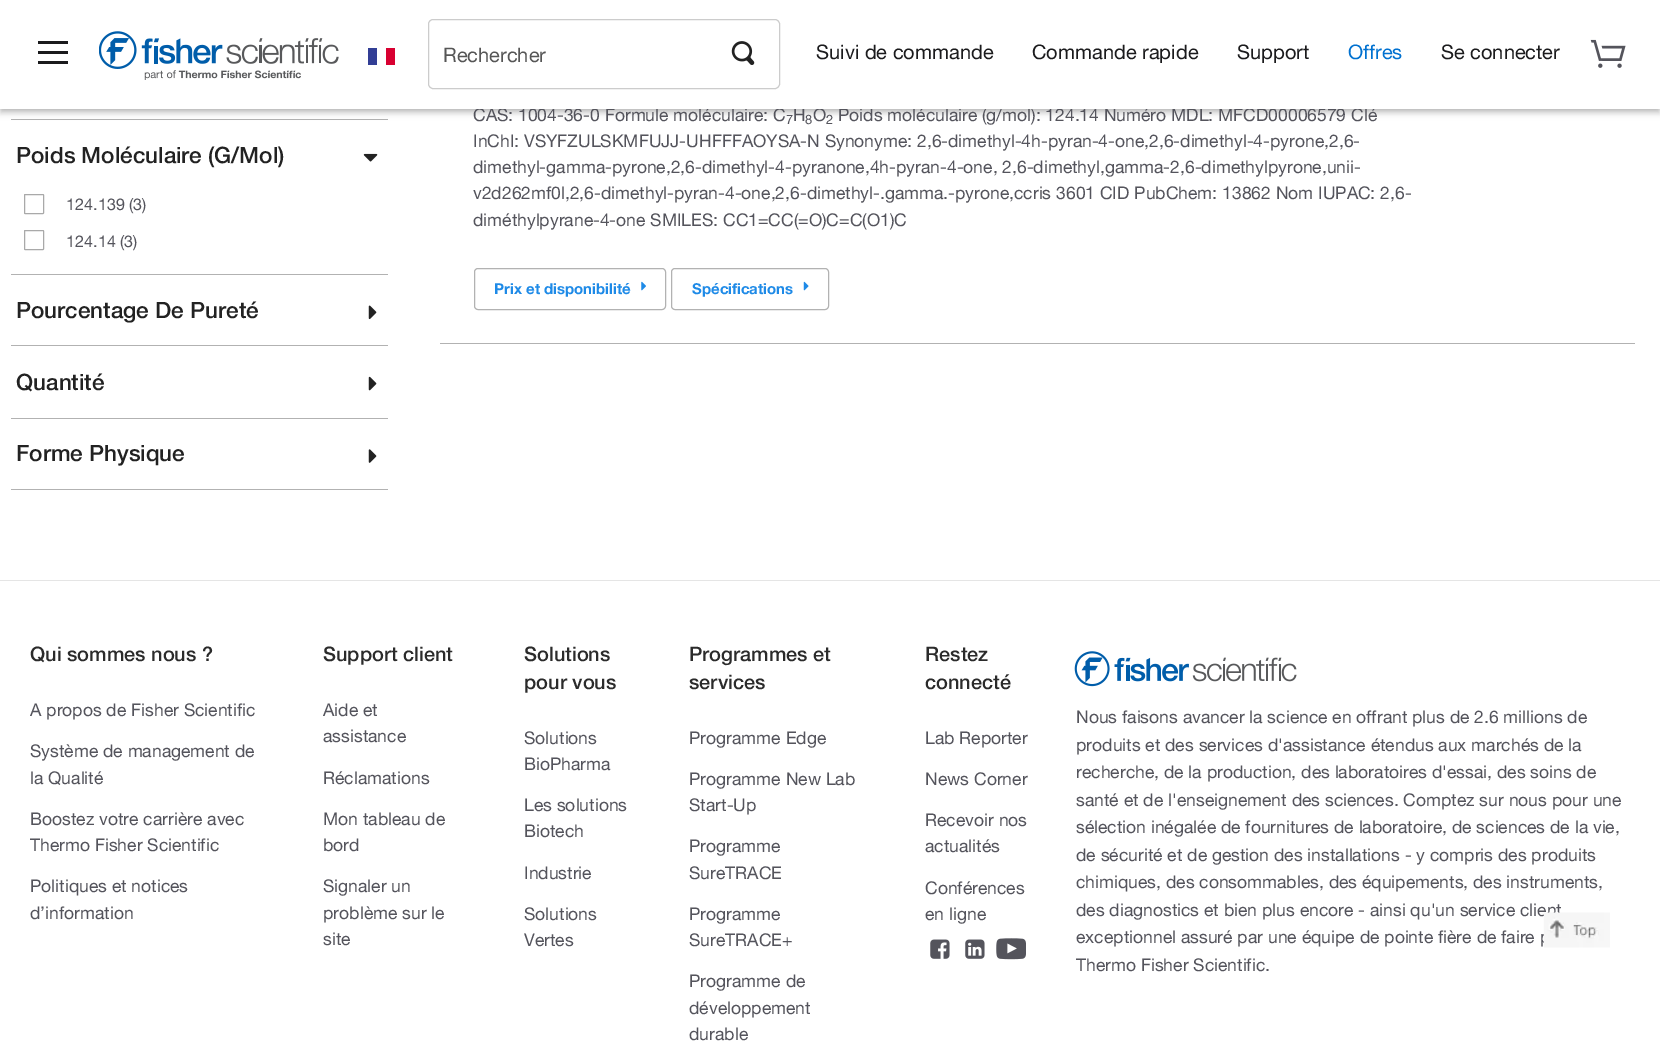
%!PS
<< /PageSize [1660 1047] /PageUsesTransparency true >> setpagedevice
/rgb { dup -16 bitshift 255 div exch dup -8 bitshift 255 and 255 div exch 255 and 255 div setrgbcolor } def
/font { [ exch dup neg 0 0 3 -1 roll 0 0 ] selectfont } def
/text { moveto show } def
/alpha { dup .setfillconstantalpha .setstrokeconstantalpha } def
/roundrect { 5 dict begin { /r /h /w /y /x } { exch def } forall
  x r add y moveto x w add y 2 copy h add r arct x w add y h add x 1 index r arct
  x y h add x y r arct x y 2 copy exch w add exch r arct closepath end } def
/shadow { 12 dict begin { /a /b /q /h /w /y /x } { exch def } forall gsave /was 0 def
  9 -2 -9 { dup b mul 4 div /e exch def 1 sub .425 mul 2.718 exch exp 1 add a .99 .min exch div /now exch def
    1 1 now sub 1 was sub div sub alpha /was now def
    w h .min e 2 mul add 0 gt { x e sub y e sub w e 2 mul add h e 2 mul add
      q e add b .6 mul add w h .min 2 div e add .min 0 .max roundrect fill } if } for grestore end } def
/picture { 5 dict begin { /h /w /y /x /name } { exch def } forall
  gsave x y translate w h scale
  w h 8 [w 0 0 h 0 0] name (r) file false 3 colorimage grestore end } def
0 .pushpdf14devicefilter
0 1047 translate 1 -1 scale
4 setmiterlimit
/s1 { /HelveticaNeue-Regular 17.5 font 16#54545C rgb } def
/s2 { /HelveticaNeue-Regular 20 font 16#565656 rgb } def
/s3 { /HelveticaNeue-Regular 20 font 16#1B1B1D rgb } def
/s4 { /HelveticaNeue-Regular 20 font 16#0071D0 rgb } def
/s5 { /HelveticaNeue-Medium 22.5 font 16#222222 rgb } def
/s6 { /HelveticaNeue-Regular 16.25 font 16#54545C rgb } def
/s7 { /HelveticaNeue-Regular 13 font 16#54545C rgb } def
/s8 { /HelveticaNeue-Bold 15 font 16#1E8AE7 rgb } def
/s9 { /HelveticaNeue-Medium 20 font 16#2B2B2B rgb } def
16#FFFFFF rgb
0 0 1660 1047 rectfill
16#B2B2B2 rgb
11 119 377 1 rectfill
16#000000 rgb
0 5 1660 109 0 3 0.14 shadow
1 4 1658 106 0 2.5 0.2 shadow
s1
(CAS: 1004-36-0 Formule moléculaire: C) 473 121 text
(H) 793 121 text
(O) 813 121 text
(Poids moléculaire \(g/mol\): 124.14 Numéro MDL: MFCD00006579 Clé) 838 121 text
16#FFFFFF rgb
0 0 1660 109 rectfill
16#1B1B1D rgb
38 51 30 3 rectfill
38 41 30 3 rectfill
38 61 30 3 rectfill
(pic1.raw) 99 31 240 49 picture
16#323E95 rgb
368 48 9 17 rectfill
16#D80031 rgb
386 48 9 17 rectfill
16#CCCCCC rgb
428.5 19.5 351 69 4.5 roundrect stroke
s2
(Rechercher) 443 62 text
(pic2.raw) 731 41 24 24 picture
s3
(Suivi de commande) 816 59 text
(Commande rapide) 1032 59 text
(Support) 1237 59 text
s4
(Offres) 1348 59 text
s3
(Se connecter) 1441 59 text
(pic3.raw) 1590 39 36 29 picture
16#B2B2B2 rgb
11 274 377 1 rectfill
s5
(Poids Moléculaire \(G/Mol\)) 16 163 text
(pic4.raw) 363 153 15 9 picture
16#A9A9A9 rgb
24.5 194.5 19 19 0.5 roundrect stroke
s6
(124.139 \(3\)) 66 210 text
16#A9A9A9 rgb
24.5 230.5 19 19 0.5 roundrect stroke
s6
(124.14 \(3\)) 66 247 text
16#B2B2B2 rgb
11 345 377 1 rectfill
s5
(Pourcentage De Pureté) 16 318 text
(pic5.raw) 368 305 9 15 picture
16#B2B2B2 rgb
11 418 377 1 rectfill
s5
(Quantité) 16 390 text
(pic6.raw) 368 376 9 15 picture
16#B2B2B2 rgb
11 489 377 1 rectfill
s5
(Forme Physique) 16 461 text
(pic7.raw) 368 449 9 14 picture
16#B2B2B2 rgb
440 343 1195 1 rectfill
s7
(7) 786 124 text
(8) 805 124 text
(2) 826 124 text
s1
(InChI: VSYFZULSKMFUJJ-UHFFFAOYSA-N Synonyme: 2,6-dimethyl-4h-pyran-4-one,2,6-dimethyl-4-pyrone,2,6-) 473 147 text
(dimethyl-gamma-pyrone,2,6-dimethyl-4-pyranone,4h-pyran-4-one, 2,6-dimethyl,gamma-2,6-dimethylpyrone,unii-) 473 173 text
(v2d262mf0l,2,6-dimethyl-pyran-4-one,2,6-dimethyl-.gamma.-pyrone,ccris 3601 CID PubChem: 13862 Nom IUPAC: 2,6-) 473 199 text
(diméthylpyrane-4-one SMILES: CC1=CC\(=O\)C=C\(O1\)C) 473 226 text
16#B2B2B2 rgb
474.5 268.5 191 41 3.5 roundrect stroke
s8
(Prix et disponibilité) 494 294 text
(pic8.raw) 641 281 5 10 picture
16#B2B2B2 rgb
671.5 268.5 157 41 3.5 roundrect stroke
s8
(Spécifications) 692 294 text
(pic9.raw) 803 281 6 10 picture
s1
(des diagnostics et bien plus encore - ainsi qu'un service client) 1076 916 text
(exceptionnel assuré par une équipe de pointe fière de faire p) 1076 943 text
(pic10.raw) 1543 912 67 36 picture
16#E5E5E5 rgb
0 580 1660 1 rectfill
s9
(Qui sommes nous ?) 30 661 text
s1
(A propos de Fisher Scientific) 30 716 text
(Système de management de) 30 757 text
(la Qualité) 30 784 text
(Boostez votre carrière avec) 30 825 text
(Thermo Fisher Scientific) 30 851 text
(Politiques et notices) 30 892 text
(d’information) 30 919 text
s9
(Support client) 323 661 text
s1
(Aide et) 323 716 text
(assistance) 323 742 text
(Réclamations) 323 784 text
(Mon tableau de) 323 825 text
(bord) 323 851 text
(Signaler un) 323 892 text
(problème sur le) 323 919 text
(site) 323 945 text
s9
(Solutions) 524 661 text
(pour vous) 524 689 text
s1
(Solutions) 524 744 text
(BioPharma) 524 770 text
(Les solutions) 524 811 text
(Biotech) 524 837 text
(Industrie) 524 879 text
(Solutions) 524 920 text
(Vertes) 524 946 text
s9
(Programmes et) 689 661 text
(services) 689 689 text
s1
(Programme Edge) 689 744 text
(Programme New Lab) 689 785 text
(Start-Up) 689 811 text
(Programme) 689 852 text
(SureTRACE) 689 879 text
(Programme) 689 920 text
(SureTRACE+) 689 946 text
(Programme de) 689 987 text
(développement) 689 1014 text
(durable) 689 1040 text
s9
(Restez) 925 661 text
(connecté) 925 689 text
s1
(Lab Reporter) 925 744 text
(News Corner) 925 785 text
(Recevoir nos) 925 826 text
(actualités) 925 852 text
(Conférences) 925 894 text
(en ligne) 925 920 text
(pic11.raw) 930 939 20 20 picture
(pic12.raw) 965 939 20 20 picture
(pic13.raw) 996 938 30 22 picture
(pic14.raw) 1074 651 223 36 picture
(Nous faisons avancer la science en offrant plus de 2.6 millions de) 1076 723 text
(produits et des services d'assistance étendus aux marchés de la) 1076 751 text
(recherche, de la production, des laboratoires d'essai, des soins de) 1076 778 text
(santé et de l'enseignement des sciences. Comptez sur nous pour une) 1076 806 text
(sélection inégalée de fournitures de laboratoire, de sciences de la vie,) 1076 833 text
(de sécurité et de gestion des installations - y compris des produits) 1076 861 text
(chimiques, des consommables, des équipements, des instruments,) 1076 888 text
(Thermo Fisher Scientific.) 1076 971 text
.poppdf14devicefilter showpage
